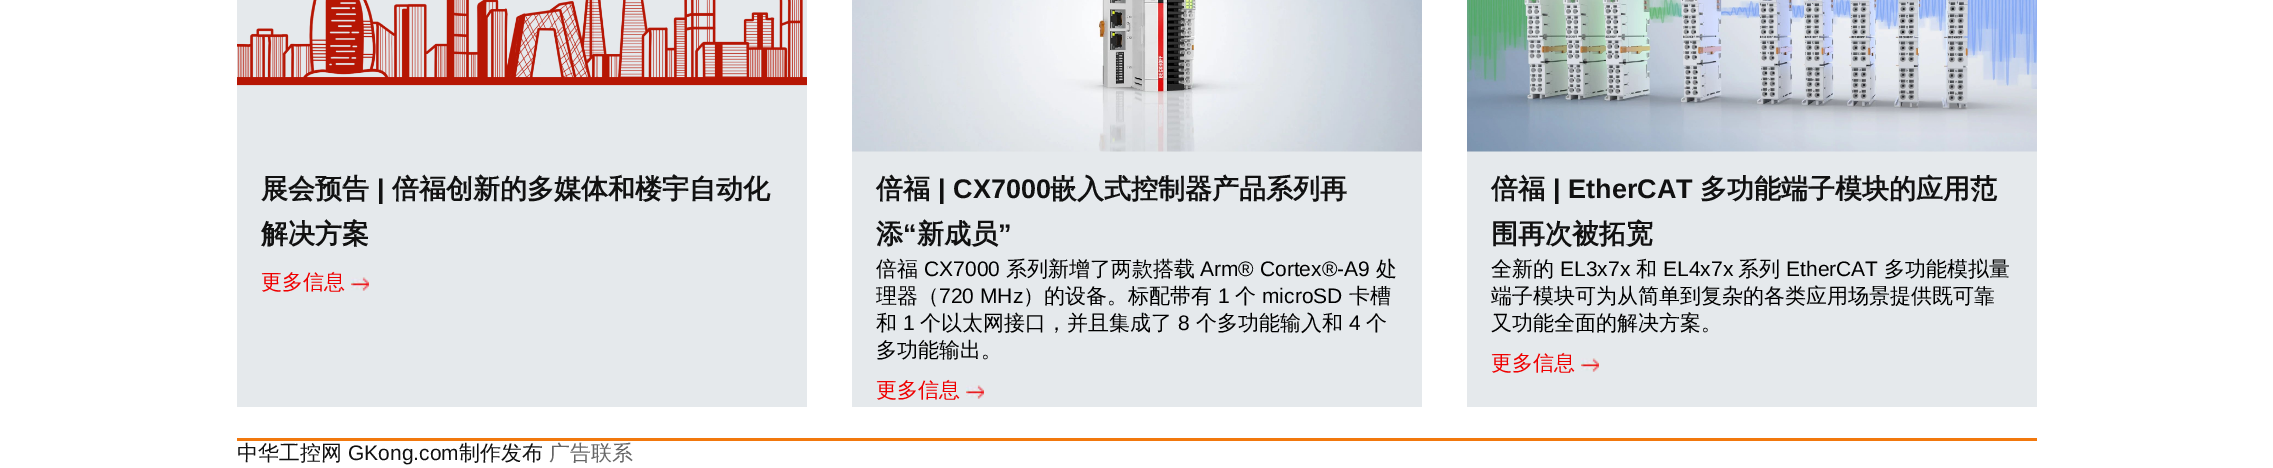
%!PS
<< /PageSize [2273 468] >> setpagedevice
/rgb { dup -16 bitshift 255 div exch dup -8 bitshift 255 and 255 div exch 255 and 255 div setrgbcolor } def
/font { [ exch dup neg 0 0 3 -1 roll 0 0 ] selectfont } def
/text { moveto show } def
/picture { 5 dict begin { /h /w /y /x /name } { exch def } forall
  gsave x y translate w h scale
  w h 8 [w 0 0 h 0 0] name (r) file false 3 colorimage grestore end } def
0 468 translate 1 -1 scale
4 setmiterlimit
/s1 { /WenQuanYiZenHei-Bold 27 font 16#111111 rgb } def
/s2 { /LiberationSans-Bold 27 font 16#111111 rgb } def
/s3 { /WenQuanYiZenHei-Medium 21 font 16#EF0000 rgb } def
/s4 { /WenQuanYiZenHei-Medium 21 font 16#000000 rgb } def
/s5 { /LiberationSans-Regular 21 font 16#000000 rgb } def
/s6 { /WenQuanYiZenHei-Medium 21 font 16#111111 rgb } def
/s7 { /LiberationSans-Regular 21 font 16#111111 rgb } def
/s8 { /WenQuanYiZenHei-Medium 21 font 16#666666 rgb } def
16#FFFFFF rgb
0 0 2273 468 rectfill
16#E5E9EC rgb
237 0 570 407 rectfill
(pic1.raw) 237 0 570 86 picture
s1
(展会预告) 261 198 text
s2
(|) 377 198 text
s1
(倍福创新的多媒体和楼宇自动化) 392 198 text
(解决方案) 261 243 text
s3
(更多信息) 261 289 text
(pic2.raw) 351 277 18 14 picture
16#E5E9EC rgb
852 151 570 256 rectfill
(pic3.raw) 852 0 570 152 picture
s1
(倍福) 876 198 text
s2
(| CX7000) 938 198 text
s1
(嵌入式控制器产品系列再) 1050 198 text
(添) 876 243 text
s2
(“) 903 243 text
s1
(新成员) 917 243 text
s2
(”) 998 243 text
s4
(倍福) 876 276 text
s5
(CX7000) 924 276 text
s4
(系列新增了两款搭载) 1006 276 text
s5
(Arm® Cortex®-A9) 1200 276 text
s4
(处) 1376 276 text
(理器（) 876 303 text
s5
(720 MHz) 939 303 text
s4
(）的设备。标配带有) 1023 303 text
s5
(1) 1218 303 text
s4
(个) 1235 303 text
s5
(microSD) 1262 303 text
s4
(卡槽) 1349 303 text
(和) 876 330 text
s5
(1) 903 330 text
s4
(个以太网接口，并且集成了) 920 330 text
s5
(8) 1178 330 text
s4
(个多功能输入和) 1196 330 text
s5
(4) 1349 330 text
s4
(个) 1366 330 text
(多功能输出。) 876 357 text
s3
(更多信息) 876 397 text
(pic4.raw) 966 385 18 14 picture
16#E5E9EC rgb
1467 151 570 256 rectfill
(pic5.raw) 1467 0 570 152 picture
s1
(倍福) 1491 198 text
s2
(| EtherCAT) 1553 198 text
s1
(多功能端子模块的应用范) 1700 198 text
(围再次被拓宽) 1491 243 text
s4
(全新的) 1491 276 text
s5
(EL3x7x) 1560 276 text
s4
(和) 1636 276 text
s5
(EL4x7x) 1663 276 text
s4
(系列) 1738 276 text
s5
(EtherCAT) 1786 276 text
s4
(多功能模拟量) 1884 276 text
(端子模块可为从简单到复杂的各类应用场景提供既可靠) 1491 303 text
(又功能全面的解决方案。) 1491 330 text
s3
(更多信息) 1491 370 text
(pic4.raw) 1581 358 18 14 picture
16#F2780D rgb
237 438 1800 3 rectfill
s6
(中华工控网) 237 460 text
s7
(GKong.com) 348 460 text
s6
(制作发布) 459 460 text
s8
(广告联系) 549 460 text
showpage
